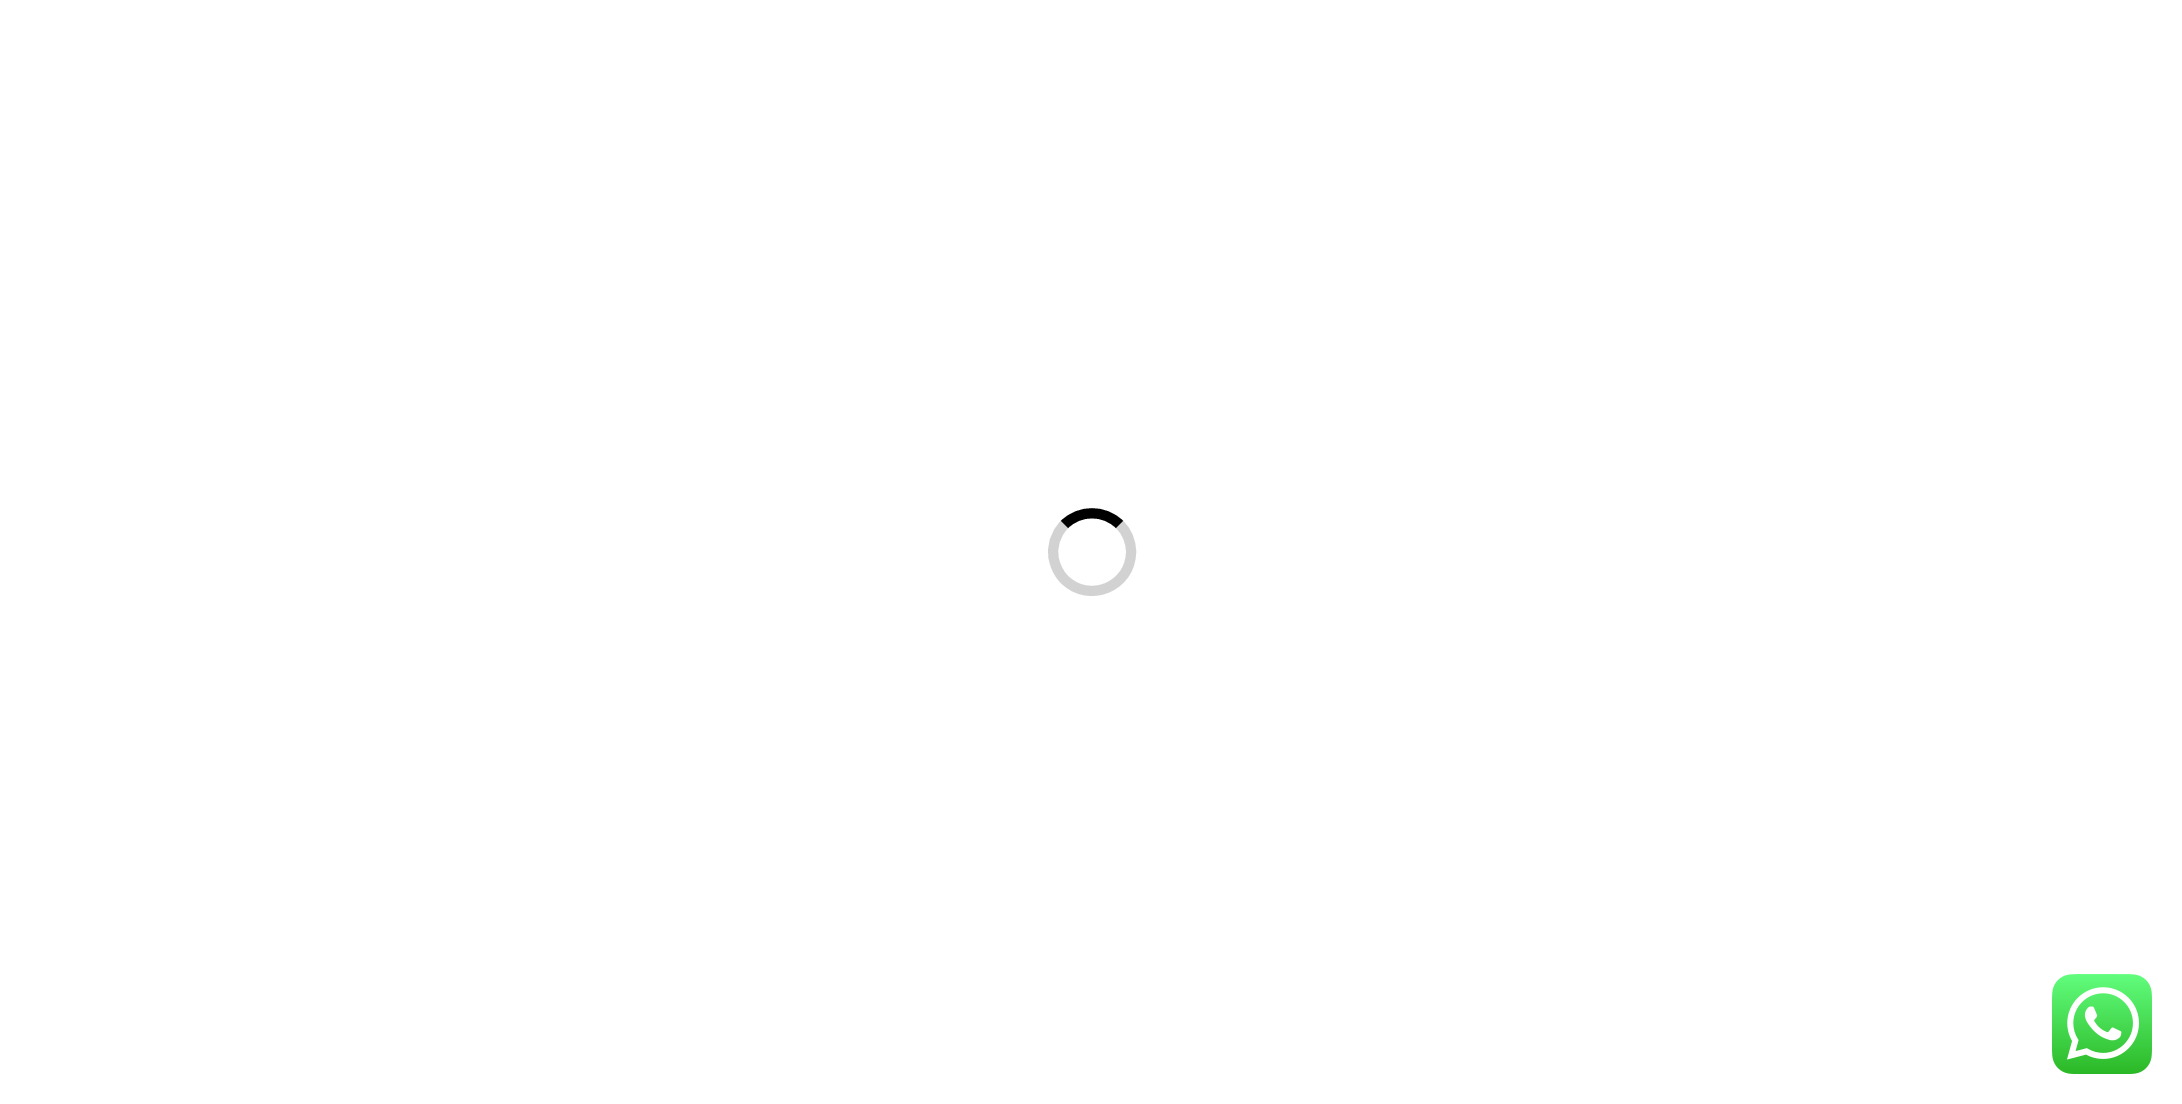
%!PS
<< /PageSize [2182 1104] /PageUsesTransparency true >> setpagedevice
/rgb { dup -16 bitshift 255 div exch dup -8 bitshift 255 and 255 div exch 255 and 255 div setrgbcolor } def
/alpha { dup .setfillconstantalpha .setstrokeconstantalpha } def
/picture { 5 dict begin { /h /w /y /x /name } { exch def } forall
  gsave x y translate w h scale
  w h 8 [w 0 0 h 0 0] name (r) file false 3 colorimage grestore end } def
0 .pushpdf14devicefilter
0 1104 translate 1 -1 scale
4 setmiterlimit
16#FFFFFF rgb
0 0 2182 1104 rectfill
16#000000 rgb
10 setlinewidth
1064.5 524.5 moveto 1079.5 509.5 1104.5 509.5 1119.5 524.5 curveto stroke
0.2 alpha
16#1D1D1D rgb
1119.5 524.5 moveto 1127 531.5 1131 541.5 1131 552 curveto 1131 586.5 1089 604 1064.5 579.5 curveto 1059 574 1055.5 567 1054 559.5 curveto 1051 547 1055.5 533.5 1064.5 524.5 curveto stroke
1 alpha
(pic1.raw) 2052 974 100 100 picture
.poppdf14devicefilter showpage
